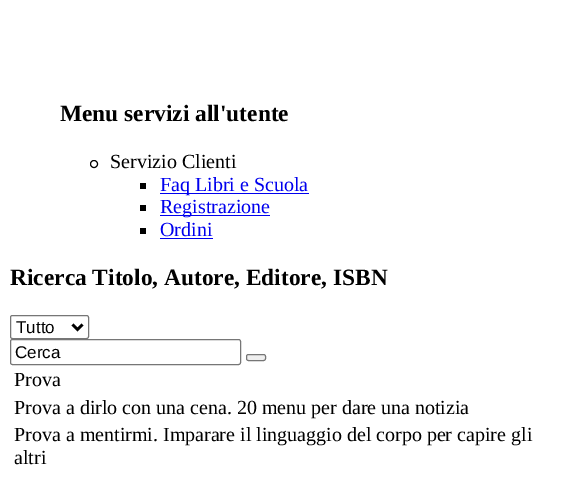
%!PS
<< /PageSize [577 478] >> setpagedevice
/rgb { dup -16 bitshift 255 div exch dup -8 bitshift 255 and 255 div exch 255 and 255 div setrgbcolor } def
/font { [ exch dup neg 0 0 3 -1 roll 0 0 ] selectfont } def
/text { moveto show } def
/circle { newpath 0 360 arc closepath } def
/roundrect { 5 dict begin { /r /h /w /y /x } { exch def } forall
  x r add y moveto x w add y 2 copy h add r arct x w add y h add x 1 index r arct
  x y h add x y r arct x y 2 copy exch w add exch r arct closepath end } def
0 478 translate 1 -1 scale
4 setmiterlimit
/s1 { /LiberationSerif-Bold 23.4 font 16#000000 rgb } def
/s2 { /LiberationSerif-Regular 20 font 16#000000 rgb } def
/s3 { /LiberationSerif-Regular 20 font 16#0000EE rgb } def
/s4 { /LiberationSans-Regular 17 font 16#000000 rgb } def
16#FFFFFF rgb
0 0 577 478 rectfill
s1
(Menu servizi all'utente) 60 121 text
94 164 3.5 circle stroke
s2
(Servizio Clienti) 110 168 text
140 183 6 6 rectfill
16#0000EE rgb
160 193 149 1 rectfill
(Faq Libri e Scuola) 160 191 text
16#000000 rgb
140 205 6 6 rectfill
16#0000EE rgb
160 215 110 1 rectfill
(Registrazione) 160 213 text
16#000000 rgb
140 228 6 6 rectfill
s3
(Ordini) 160 236 text
160 238 53 1 rectfill
s1
(Ricerca Titolo, Autore, Editore, ISBN) 10 285 text
16#767676 rgb
10.5 315.5 78 23 2 roundrect stroke
16#000000 rgb
2.5 setlinewidth
72.5 324.5 moveto 77.5 329.5 lineto 82.5 324.5 lineto stroke
s4
(Tutto) 16 333 text
16#767676 rgb
1 setlinewidth
10.5 339.5 230 25 2 roundrect stroke
s4
(Cerca) 15 358 text
16#EFEFEF rgb
246.5 354.5 19 6 2 roundrect gsave fill grestore
16#767676 rgb
stroke
s2
(Prova) 14 386 text
(Prova a dirlo con una cena. 20 menu per dare una notizia) 14 414 text
(Prova a mentirmi. Imparare il linguaggio del corpo per capire gli) 14 441 text
(altri) 14 464 text
showpage
